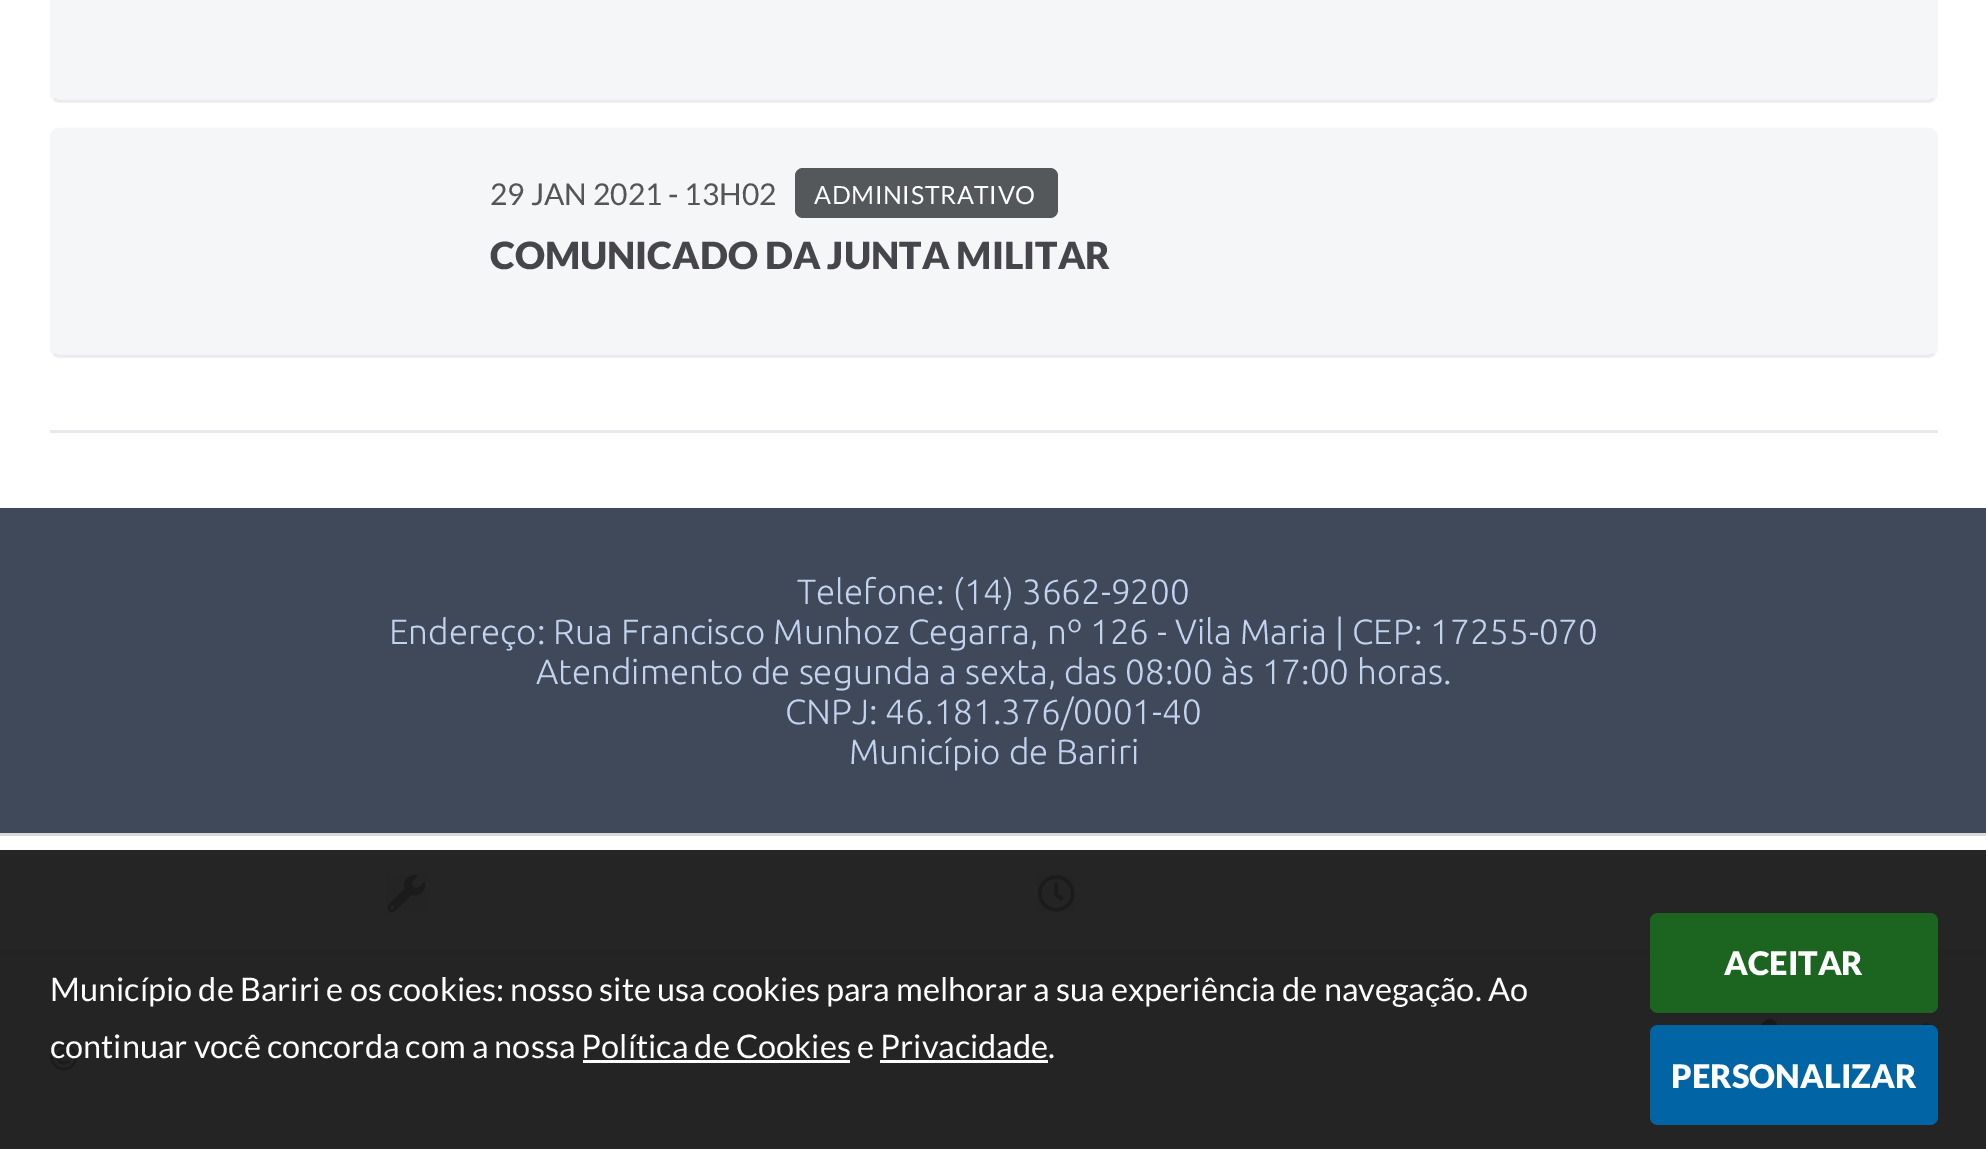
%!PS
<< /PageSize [1986 1149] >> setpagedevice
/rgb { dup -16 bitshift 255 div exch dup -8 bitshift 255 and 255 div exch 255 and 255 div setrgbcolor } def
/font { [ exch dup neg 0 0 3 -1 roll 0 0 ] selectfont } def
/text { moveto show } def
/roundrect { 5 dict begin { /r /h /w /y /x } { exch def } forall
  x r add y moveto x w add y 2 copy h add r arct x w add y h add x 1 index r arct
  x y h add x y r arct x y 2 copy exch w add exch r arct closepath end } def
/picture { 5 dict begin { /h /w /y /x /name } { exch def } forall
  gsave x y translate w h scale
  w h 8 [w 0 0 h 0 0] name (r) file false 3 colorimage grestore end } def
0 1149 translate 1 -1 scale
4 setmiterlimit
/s1 { /Lato-Regular 30 font 16#555555 rgb } def
/s2 { /Lato-Black 37.5 font 16#45454B rgb } def
/s3 { /Ubuntu-Light 35 font 16#C2D3EF rgb } def
/s4 { /Lato-Regular 32.5 font 16#FFFFFF rgb } def
/s5 { /Lato-Black 32.5 font 16#FFFFFF rgb } def
16#FFFFFF rgb
0 0 1986 1149 rectfill
16#252525 rgb
0 850 1986 100 rectfill
16#F5F6F8 rgb
50 -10 1888 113 10 roundrect fill
16#EBEBF0 rgb
2.5 setlinewidth
1933.5 98.5 moveto 1932 100.5 1930 101 1927.5 101 curveto 60 101 lineto 57.5 101 55.5 100.5 54 98.5 curveto stroke
16#F5F6F8 rgb
54 98.5 moveto 52 97 51 95 51 92.5 curveto 51 -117.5 lineto 51 -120 52 -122 54 -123.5 curveto 55.5 -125.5 57.5 -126 60 -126 curveto 1927.5 -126 lineto 1930 -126 1932 -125.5 1933.5 -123.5 curveto 1935.5 -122 1936 -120 1936 -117.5 curveto 1936 92.5 lineto 1936 95 1935.5 97 1933.5 98.5 curveto stroke
50 128 1888 230 10 roundrect fill
16#EBEBF0 rgb
1933.5 353.5 moveto 1932 355.5 1930 356 1927.5 356 curveto 60 356 lineto 57.5 356 55.5 355.5 54 353.5 curveto stroke
16#F5F6F8 rgb
54 353.5 moveto 52 352 51 350 51 347.5 curveto 51 137.5 lineto 51 135 52 133 54 131.5 curveto 55.5 129.5 57.5 129 60 129 curveto 1927.5 129 lineto 1930 129 1932 129.5 1933.5 131.5 curveto 1935.5 133 1936 135 1936 137.5 curveto 1936 347.5 lineto 1936 350 1935.5 352 1933.5 353.5 curveto stroke
s1
(29 JAN 2021 - 13H02) 490 205 text
16#54585B rgb
795 168 263 50 8 roundrect fill
/Lato-Regular 25 font
16#FFFFFF rgb
814 204 moveto 0.6 0 (ADMINISTRATIVO) ashow
s2
(COMUNICADO DA JUNTA MILITAR) 490 269 text
16#E8E8EE rgb
50 430 1888 3 rectfill
16#3F4959 rgb
0 508 1986 325 rectfill
s3
(Telefone: \(14\) 3662-9200) 797 604 text
(Endereço: Rua Francisco Munhoz Cegarra, nº 126 - Vila Maria | CEP: 17255-070) 389 644 text
(Atendimento de segunda a sexta, das 08:00 às 17:00 horas.) 536 684 text
(CNPJ: 46.181.376/0001-40) 785 724 text
(Município de Bariri) 849 764 text
16#D9D9D9 rgb
0 833 1986 3 rectfill
16#232323 rgb
0 950 1986 3 rectfill
(pic1.raw) 387 874 39 39 picture
(pic2.raw) 1038 875 37 37 picture
16#242424 rgb
0 953 1986 196 rectfill
(pic3.raw) 1761 1018 171 8 picture
(pic4.raw) 50 1043 28 28 picture
s4
(Município de Bariri e os cookies: nosso site usa cookies para melhorar a sua experiência de navegação. Ao) 50 1001 text
(continuar você concorda com a nossa Política de Cookies e Privacidade.) 50 1058 text
583 1060 267 3 rectfill
880 1060 168 3 rectfill
16#1B6520 rgb
1650 913 288 100 8 roundrect fill
s5
(ACEITAR) 1724 975 text
16#0164A4 rgb
1650 1025 288 100 8 roundrect fill
s5
(PERSONALIZAR) 1671 1088 text
showpage
